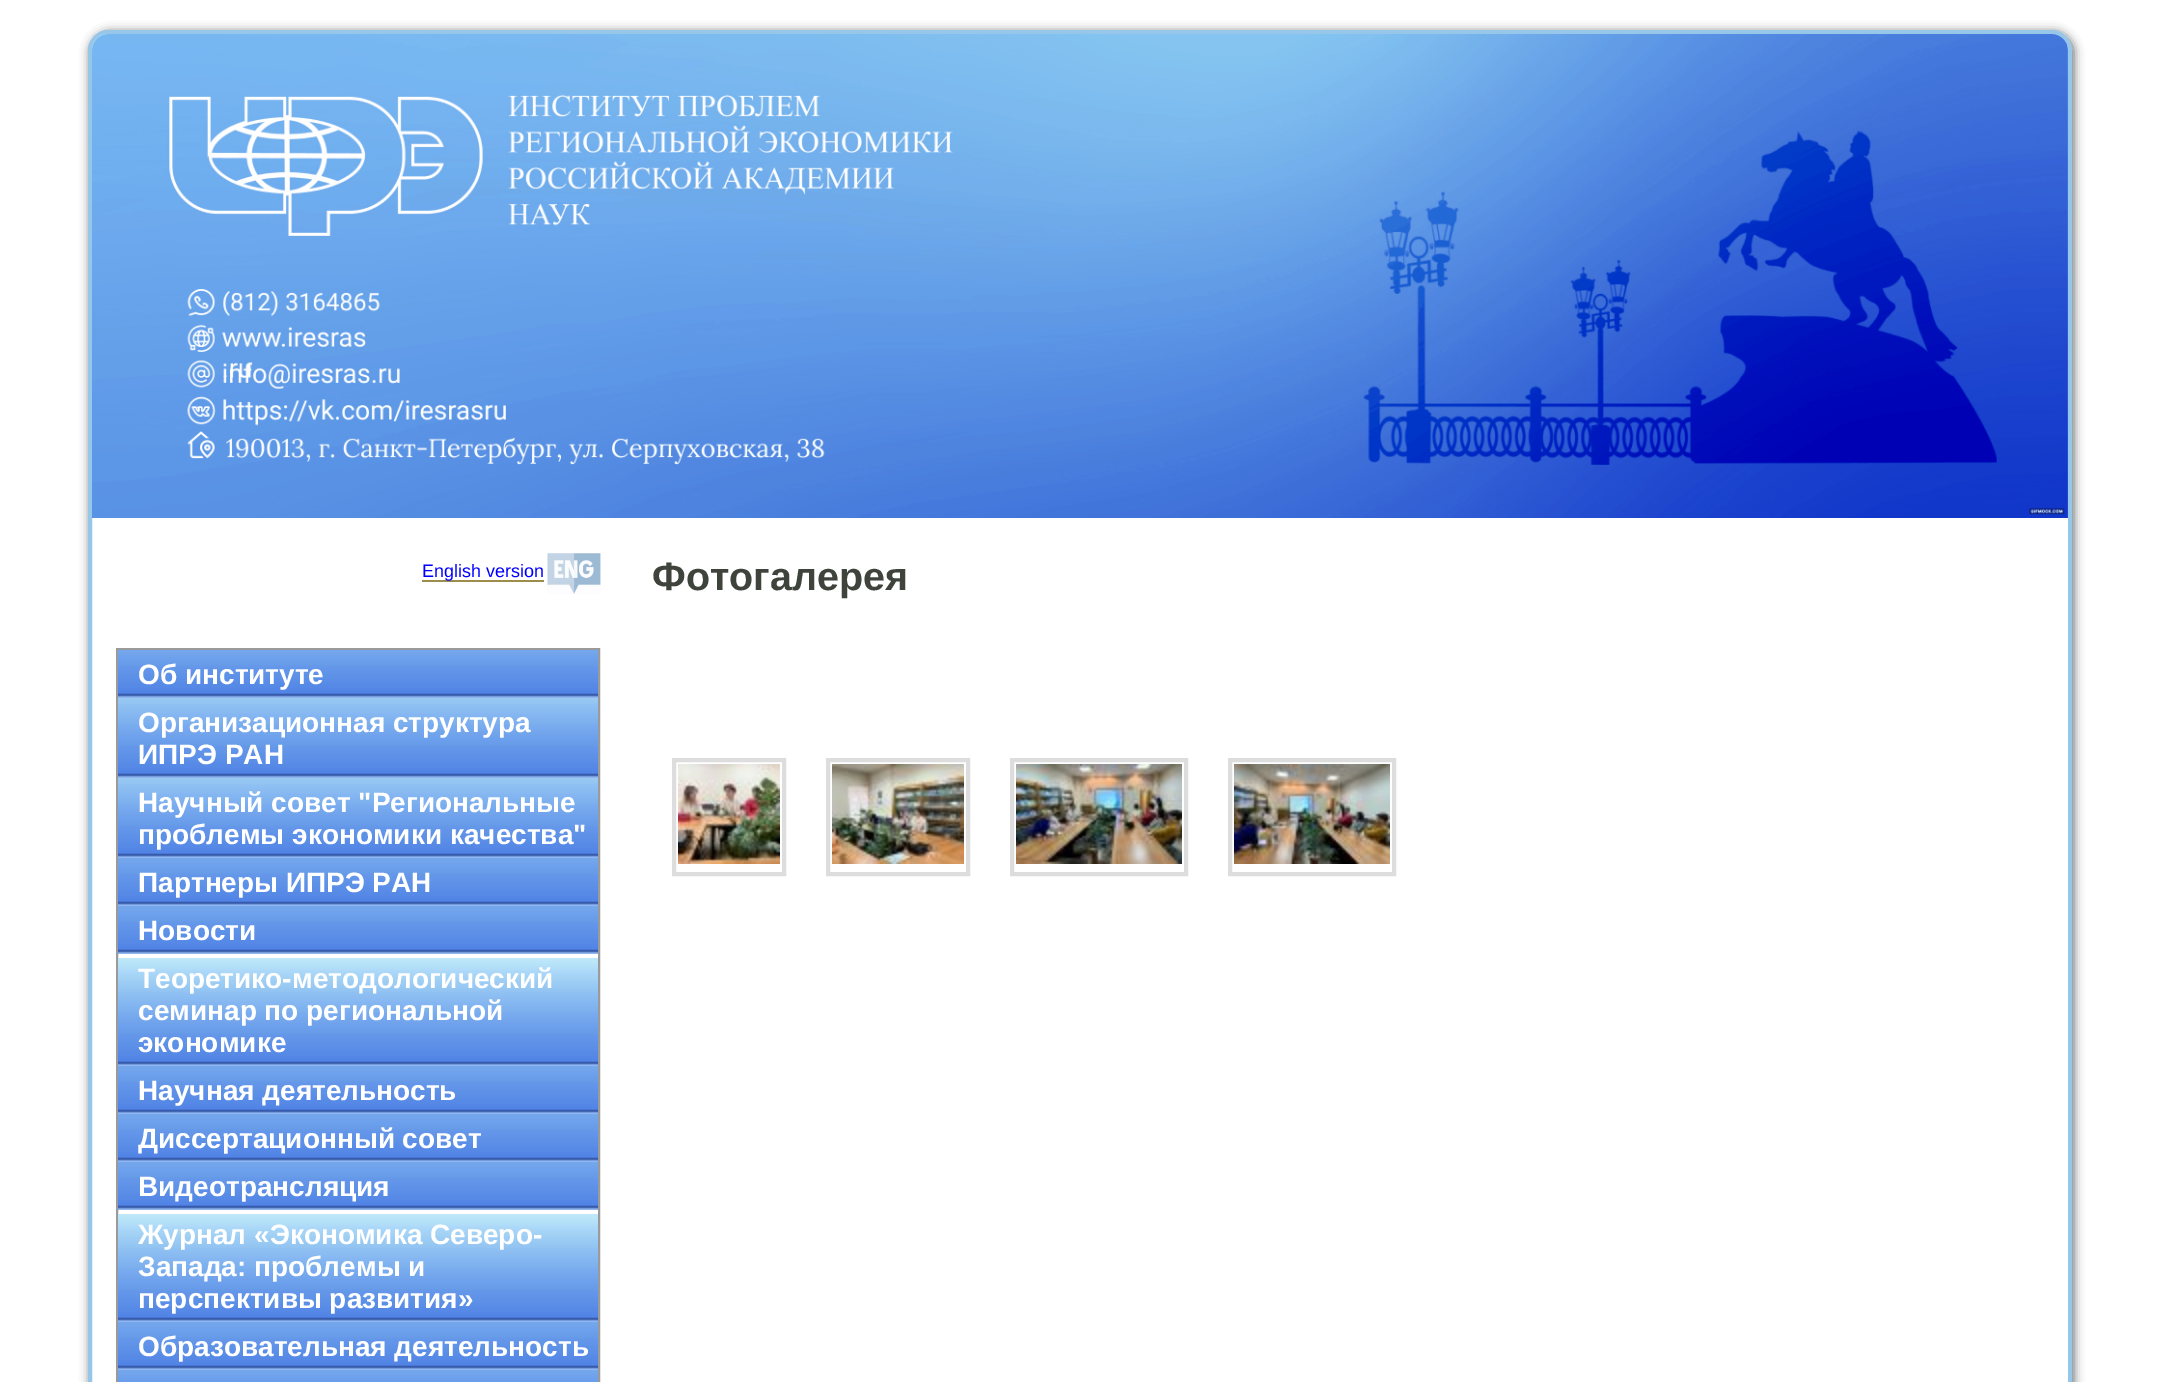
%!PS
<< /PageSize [2160 1382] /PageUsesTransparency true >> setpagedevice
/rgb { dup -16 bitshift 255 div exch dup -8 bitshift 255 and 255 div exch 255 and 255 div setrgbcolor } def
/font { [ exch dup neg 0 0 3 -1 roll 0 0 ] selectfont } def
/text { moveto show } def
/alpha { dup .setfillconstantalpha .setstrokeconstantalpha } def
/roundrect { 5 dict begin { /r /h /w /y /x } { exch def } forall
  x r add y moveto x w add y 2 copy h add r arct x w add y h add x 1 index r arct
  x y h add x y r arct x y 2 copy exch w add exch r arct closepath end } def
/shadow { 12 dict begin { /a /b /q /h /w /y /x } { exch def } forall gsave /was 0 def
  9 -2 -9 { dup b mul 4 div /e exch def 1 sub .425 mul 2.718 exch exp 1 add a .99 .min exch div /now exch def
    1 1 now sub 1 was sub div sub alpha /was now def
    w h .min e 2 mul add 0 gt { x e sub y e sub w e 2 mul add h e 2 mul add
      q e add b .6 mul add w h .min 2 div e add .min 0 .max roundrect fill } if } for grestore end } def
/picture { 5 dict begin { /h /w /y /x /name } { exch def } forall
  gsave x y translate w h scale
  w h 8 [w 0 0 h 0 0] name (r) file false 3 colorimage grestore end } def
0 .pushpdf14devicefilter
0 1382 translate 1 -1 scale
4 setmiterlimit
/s1 { /LiberationSans-Regular 18 font 16#0000FF rgb } def
/s2 { /LiberationSans-Bold 28 font 16#FFFFFF rgb } def
/s3 { /LiberationSans-Bold 39.5 font 16#3E443C rgb } def
16#FFFFFF rgb
0 0 2160 1382 rectfill
gsave
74 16 moveto 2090 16 lineto 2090 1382 lineto 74 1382 lineto closepath 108 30 moveto 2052 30 lineto 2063 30 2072 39 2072 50 curveto 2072 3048 lineto 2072 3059 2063 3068 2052 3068 curveto 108 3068 lineto 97 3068 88 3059 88 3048 curveto 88 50 lineto 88 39 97 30 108 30 curveto closepath eoclip newpath
16#323232 rgb
90 32 1984 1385 20 5 0.75 shadow
grestore
16#96C6E8 rgb
4 setlinewidth
90 32 1980 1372 18 roundrect stroke
(pic1.raw) 92 34 1976 484 picture
16#9C8D4F rgb
422 580 122 2 rectfill
s1
(English version) 422 577 text
(pic2.raw) 547 553 54 41 picture
16#9A9A9A rgb
2 setlinewidth
117 649 482 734 rectstroke
(pic3.raw) 118 650 480 48 picture
s2
(Об институте) 138 684 text
(pic4.raw) 118 698 480 80 picture
(Организационная структура) 138 732 text
(ИПРЭ РАН) 138 764 text
(pic4.raw) 118 778 480 80 picture
(Научный совет "Региональные) 138 812 text
(проблемы экономики качества") 138 844 text
(pic3.raw) 118 858 480 48 picture
(Партнеры ИПРЭ РАН) 138 892 text
(pic3.raw) 118 906 480 48 picture
(Новости) 138 940 text
(pic5.raw) 118 958 480 108 picture
(Теоретико-методологический) 138 988 text
(семинар по региональной) 138 1020 text
(экономике) 138 1052 text
(pic3.raw) 118 1066 480 48 picture
(Научная деятельность) 138 1100 text
(pic3.raw) 118 1114 480 48 picture
(Диссертационный совет) 138 1148 text
(pic3.raw) 118 1162 480 48 picture
(Видеотрансляция) 138 1196 text
(pic5.raw) 118 1214 480 108 picture
(Журнал «Экономика Северо-) 138 1244 text
(Запада: проблемы и) 138 1276 text
(перспективы развития») 138 1308 text
(pic3.raw) 118 1322 480 48 picture
(Образовательная деятельность) 138 1356 text
(pic6.raw) 118 1370 480 12 picture
s3
(Фотогалерея) 652 590 text
16#DDDDDD rgb
4 setlinewidth
674 760 110 114 rectstroke
(pic7.raw) 678 764 102 100 picture
828 760 140 114 rectstroke
(pic8.raw) 832 764 132 100 picture
1012 760 174 114 rectstroke
(pic9.raw) 1016 764 166 100 picture
1230 760 164 114 rectstroke
(pic10.raw) 1234 764 156 100 picture
.poppdf14devicefilter showpage
